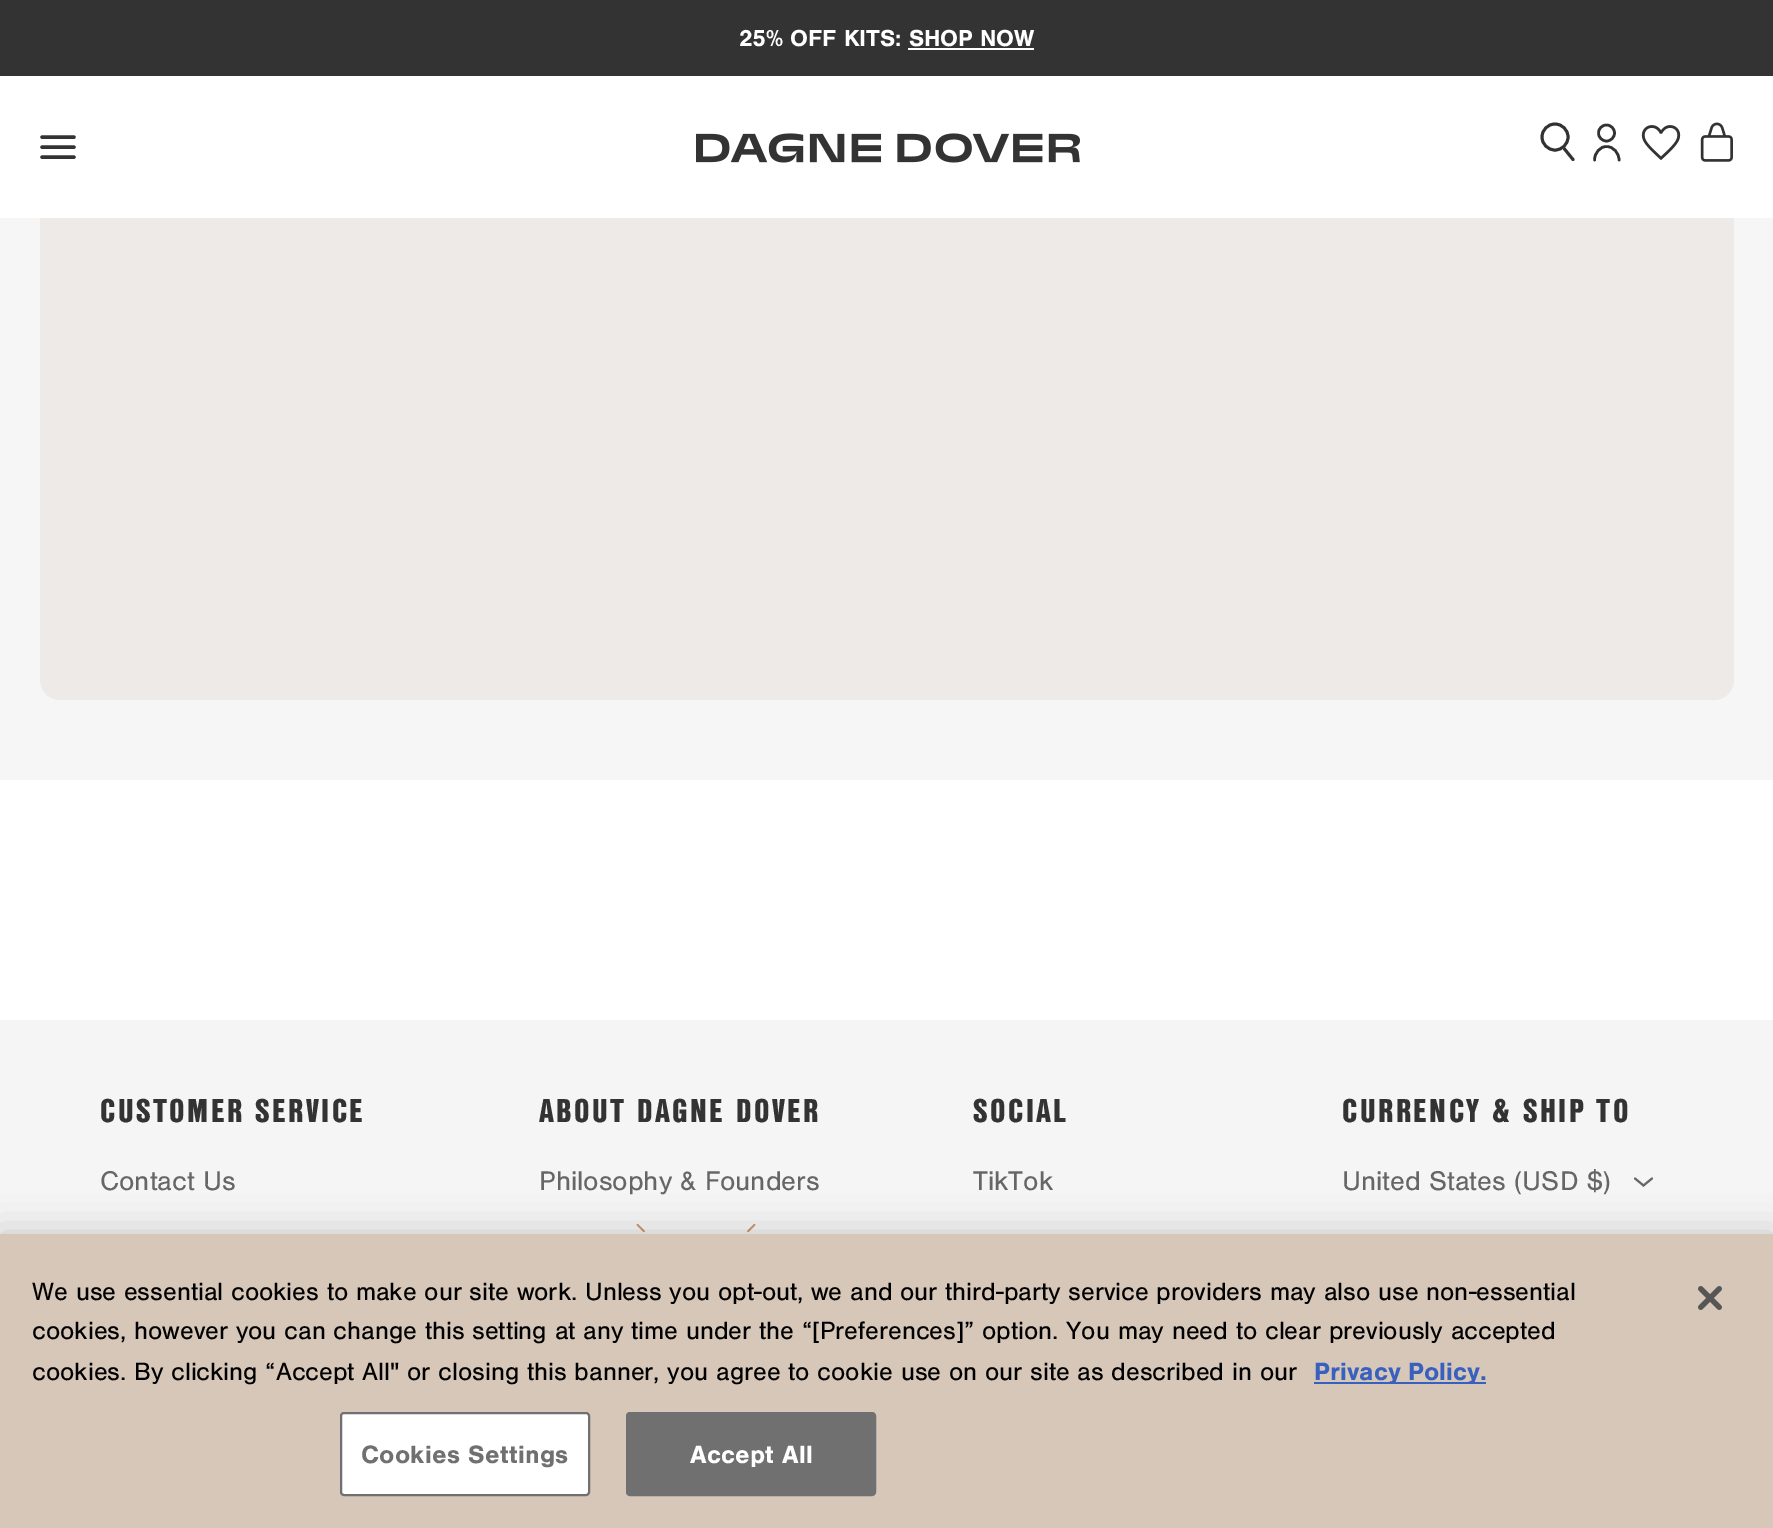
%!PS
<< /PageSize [1773 1528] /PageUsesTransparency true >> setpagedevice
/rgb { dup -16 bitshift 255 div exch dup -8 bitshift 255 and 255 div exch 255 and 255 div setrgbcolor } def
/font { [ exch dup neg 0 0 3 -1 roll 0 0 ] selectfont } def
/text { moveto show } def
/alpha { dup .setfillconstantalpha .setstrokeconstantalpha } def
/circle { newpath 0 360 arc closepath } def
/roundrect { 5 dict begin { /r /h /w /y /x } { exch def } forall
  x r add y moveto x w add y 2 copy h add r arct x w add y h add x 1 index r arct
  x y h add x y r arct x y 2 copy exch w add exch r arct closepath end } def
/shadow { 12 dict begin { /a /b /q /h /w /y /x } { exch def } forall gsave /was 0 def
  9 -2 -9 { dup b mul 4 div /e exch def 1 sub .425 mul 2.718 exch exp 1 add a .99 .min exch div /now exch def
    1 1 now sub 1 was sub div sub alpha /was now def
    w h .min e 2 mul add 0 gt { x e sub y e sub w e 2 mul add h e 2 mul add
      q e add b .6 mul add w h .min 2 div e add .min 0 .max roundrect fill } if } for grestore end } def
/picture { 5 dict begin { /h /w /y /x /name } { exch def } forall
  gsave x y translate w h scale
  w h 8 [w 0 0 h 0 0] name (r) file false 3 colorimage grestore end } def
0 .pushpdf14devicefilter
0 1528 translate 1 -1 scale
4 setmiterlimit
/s1 { /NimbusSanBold-Bold 24 font 16#FFFFFF rgb } def
/s2 { /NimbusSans-Regular 28 font 16#666666 rgb } def
/s3 { /NimbusSans-Regular 26.02 font 16#000000 rgb } def
/s4 { /NimbusSanBold-Bold 26.02 font 16#3860BE rgb } def
16#FFFFFF rgb
0 0 1773 1528 rectfill
16#F6F6F6 rgb
0 218 1773 562 rectfill
16#EDEAE8 rgb
40 -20 1694 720 20 roundrect fill
16#333333 rgb
0 0 1773 76 rectfill
s1
(25% OFF KITS: SHOP NOW) 739 46 text
908 48 126 2 rectfill
40 76 1694 142 rectfill
16#333333 rgb
3.4 setlinewidth
1 setlinecap
42 137 moveto 74 137 lineto 42 147 moveto 74 147 lineto 42 157 moveto 74 157 lineto stroke
(pic1.raw) 696 133 384 30 picture
16#323232 rgb
2.9 setlinewidth
1564.5 149 moveto 1573 159.5 lineto stroke
0 setlinecap
1555 137 13 circle stroke
2.6 setlinewidth
1606.5 133 8 circle stroke
1 setlinecap
1594.5 160 moveto 1594.5 153 1600 146.5 1606.5 146.5 curveto 1613.5 146.5 1619 153 1619 160 curveto stroke
(pic2.raw) 1641 125 40 36 picture
(pic3.raw) 1700 122 33 40 picture
16#F5F5F5 rgb
0 1020 1773 214 rectfill
/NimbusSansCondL-Black 32 font
16#333333 rgb
100 1122 moveto 2.4 0 (CUSTOMER SERVICE) ashow
s2
(Contact Us) 100 1190 text
/NimbusSansCondL-Black 32 font
16#333333 rgb
539 1122 moveto 2.4 0 (ABOUT DAGNE DOVER) ashow
s2
(Philosophy & Founders) 539 1190 text
(pic4.raw) 636 1223 120 10 picture
/NimbusSansCondL-Black 32 font
16#333333 rgb
973 1122 moveto 2.4 0 (SOCIAL) ashow
s2
(TikTok) 973 1190 text
/NimbusSansCondL-Black 32 font
16#333333 rgb
1342 1122 moveto 2.4 0 (CURRENCY & SHIP TO) ashow
s2
(United States \(USD $\)) 1342 1190 text
2 setlinewidth
1635 1178.5 moveto 1643.5 1185.5 lineto 1652 1178.5 lineto stroke
16#000000 rgb
0 1234 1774 294 0 18 0.2 shadow
16#D6C7B8 rgb
0 1234 1773 294 rectfill
s3
(We use essential cookies to make our site work. Unless you opt-out, we and our third-party service providers may also use non-essential) 32 1300 text
(cookies, however you can change this setting at any time under the “[Preferences]” option. You may need to clear previously accepted) 32 1339 text
(cookies. By clicking “Accept All" or closing this banner, you agree to cookie use on our site as described in our) 32 1380 text
16#3860BE rgb
1314 1382 172 2 rectfill
s4
(Privacy Policy.) 1314 1380 text
16#FFFFFF rgb
341 1413 248 82 3 roundrect gsave fill grestore
16#717070 rgb
0 setlinecap
stroke
361 1463 moveto 0.25 0 (Cookies Settings) ashow
627 1413 248 82 3 roundrect gsave fill grestore
stroke
16#FFFFFF rgb
690 1463 moveto 0.25 0 (Accept All) ashow
(pic5.raw) 1698 1286 24 24 picture
.poppdf14devicefilter showpage
